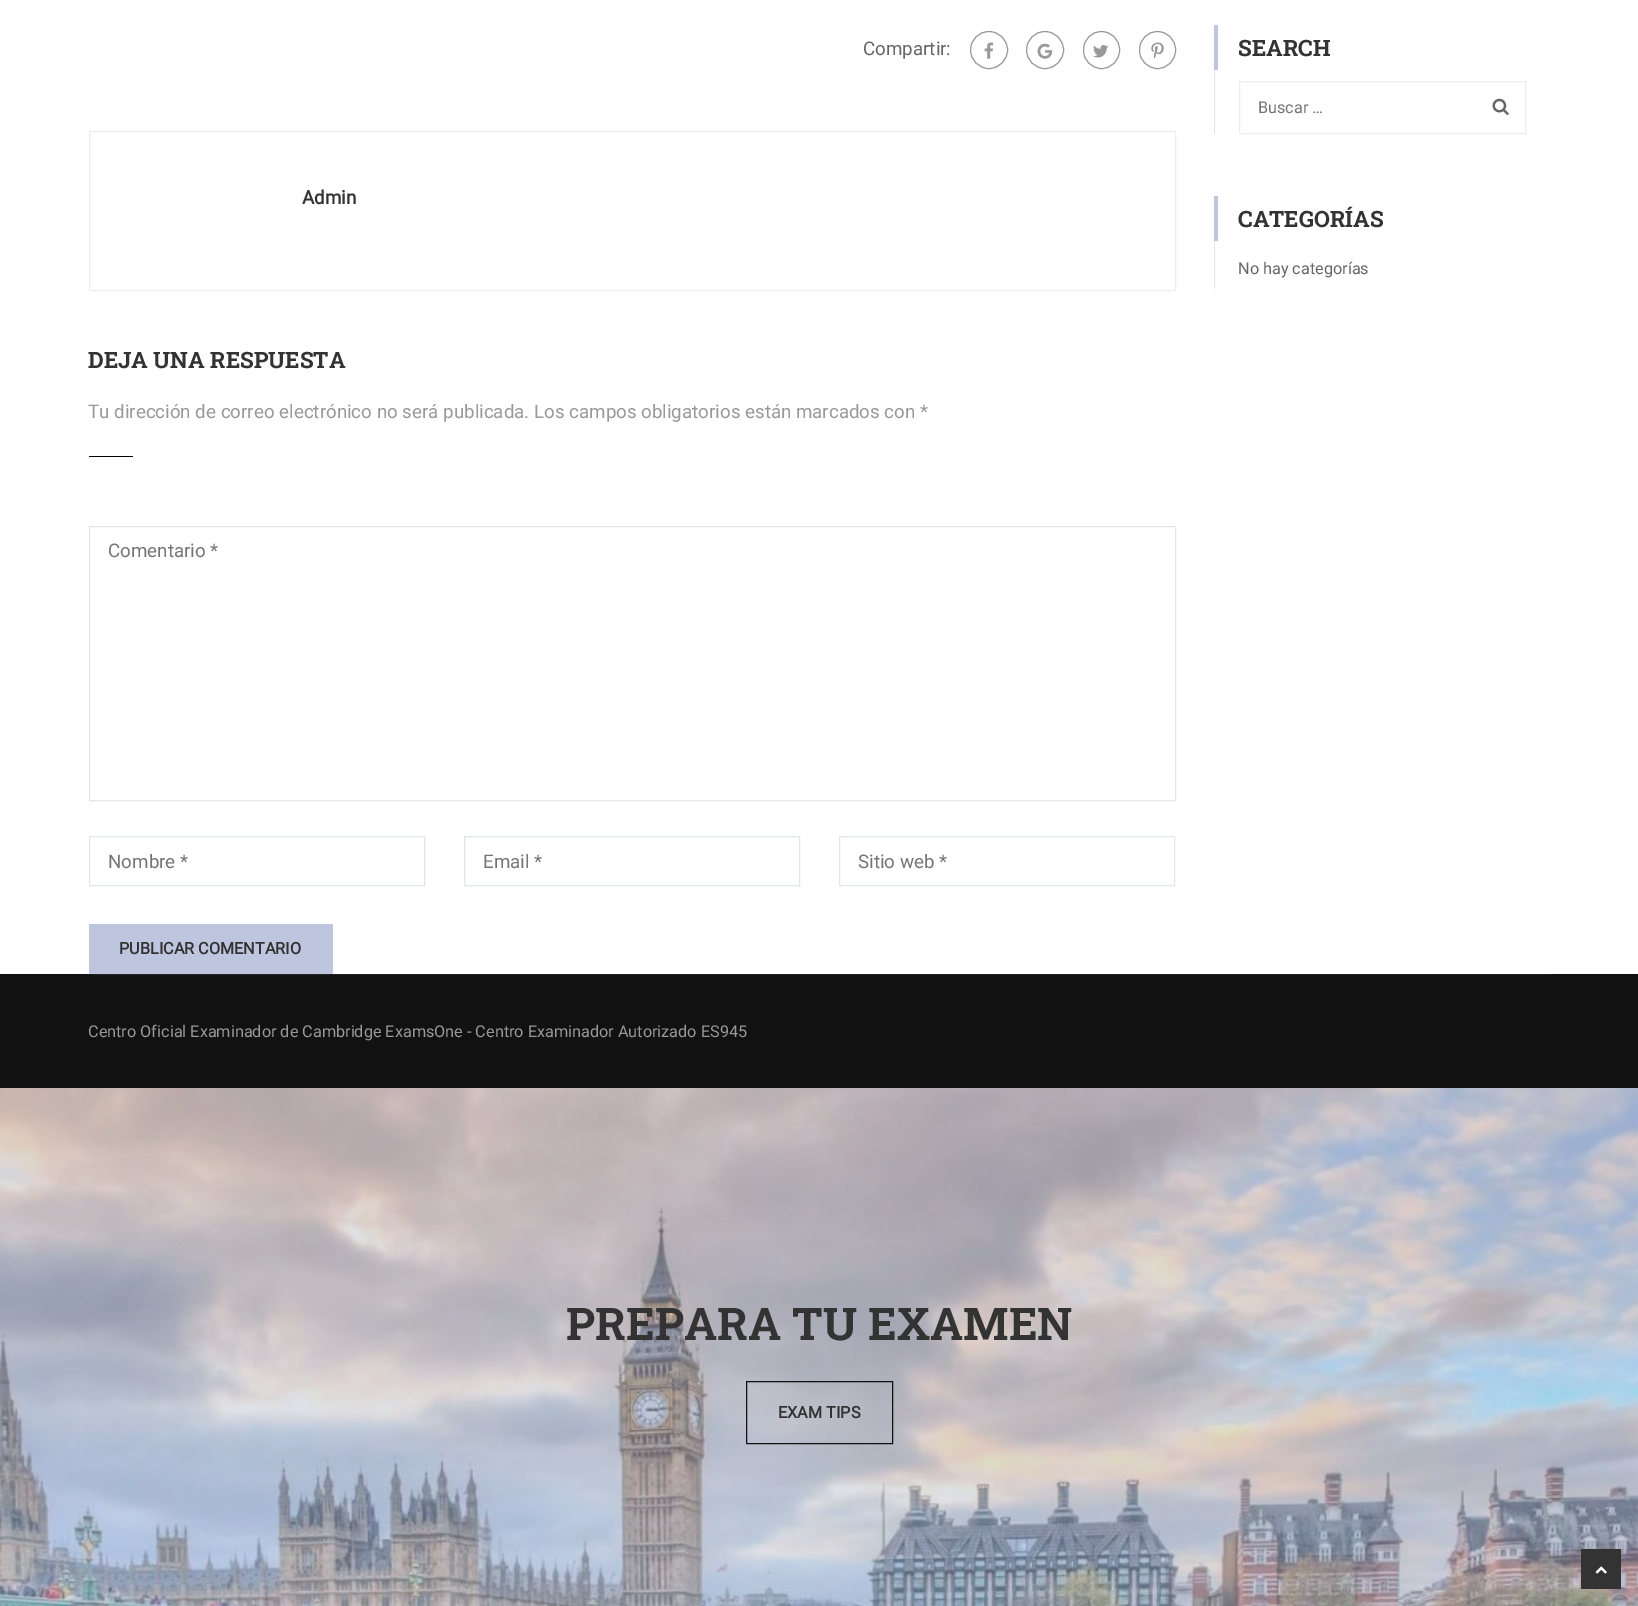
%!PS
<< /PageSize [1638 1606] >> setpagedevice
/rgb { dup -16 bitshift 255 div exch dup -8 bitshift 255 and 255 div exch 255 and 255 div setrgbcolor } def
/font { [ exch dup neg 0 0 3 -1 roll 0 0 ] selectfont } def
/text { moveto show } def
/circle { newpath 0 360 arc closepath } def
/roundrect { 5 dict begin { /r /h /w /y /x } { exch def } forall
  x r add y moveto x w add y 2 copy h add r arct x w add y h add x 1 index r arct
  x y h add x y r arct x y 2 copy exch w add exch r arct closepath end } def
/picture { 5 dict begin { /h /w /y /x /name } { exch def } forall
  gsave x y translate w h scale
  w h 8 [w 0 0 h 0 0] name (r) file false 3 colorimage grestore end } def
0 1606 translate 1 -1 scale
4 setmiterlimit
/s1 { /Roboto-Regular 18.75 font 16#666666 rgb } def
/s2 { /Roboto-Bold 18.75 font 16#333333 rgb } def
/s3 { /RobotoSlab-Bold 22.5 font 16#333333 rgb } def
/s4 { /Roboto-Regular 18.75 font 16#999999 rgb } def
/s5 { /Roboto-Regular 18.75 font 16#757575 rgb } def
/s6 { /Roboto-Bold 16.25 font 16#333333 rgb } def
/s7 { /Roboto-Regular 16.25 font 16#757575 rgb } def
/s8 { /Roboto-Regular 16.25 font 16#666666 rgb } def
/s9 { /Roboto-Regular 16.25 font 16#999999 rgb } def
/s10 { /RobotoSlab-Bold 45 font 16#333333 rgb } def
16#FFFFFF rgb
0 0 1638 1606 rectfill
s1
(Compartir:) 863 55 text
16#999999 rgb
989 50 18.5 circle stroke
(pic1.raw) 984 42 10 17 picture
1045 50 18.5 circle stroke
(pic2.raw) 1037 43 16 16 picture
1083.5 31.5 36 37 18 roundrect stroke
(pic3.raw) 1093 45 16 13 picture
1139.5 31.5 36 37 18 roundrect stroke
(pic4.raw) 1151 42 13 17 picture
16#EEEEEE rgb
89.5 131.5 1086 159 rectstroke
s2
(Admin) 302 204 text
s3
(DEJA UNA RESPUESTA) 88 368 text
s4
(Tu dirección de correo electrónico no será publicada. Los campos obligatorios están marcados con *) 88 418 text
16#000000 rgb
89 456 44 1 rectfill
16#E3E6E6 rgb
89.5 526.5 1086 274 rectstroke
s5
(Comentario *) 108 557 text
16#E3E6E6 rgb
89.5 836.5 335 49 rectstroke
s5
(Nombre *) 108 868 text
16#E3E6E6 rgb
464.5 836.5 335 49 rectstroke
s5
(Email *) 483 868 text
16#E3E6E6 rgb
839.5 836.5 335 49 rectstroke
s5
(Sitio web *) 858 868 text
16#BEC5DE rgb
89 924 244 50 rectfill
s6
(PUBLICAR COMENTARIO) 119 954 text
16#BEC5DE rgb
1214 25 4 45 rectfill
s3
(SEARCH) 1238 56 text
16#E5E5E5 rgb
1214 70 1 64 rectfill
16#EEEEEE rgb
1239.5 81.5 286 52 rectstroke
s7
(Buscar …) 1258 113 text
(pic5.raw) 1492 98 17 17 picture
16#BEC5DE rgb
1214 196 4 45 rectfill
s3
(CATEGORÍAS) 1238 227 text
16#E5E5E5 rgb
1214 241 1 48 rectfill
s8
(No hay categorías) 1238 274 text
16#111111 rgb
0 974 1638 114 rectfill
16#222222 rgb
89 974 1462 1 rectfill
s9
(Centro Oficial Examinador de Cambridge ExamsOne - Centro Examinador Autorizado ES945) 88 1037 text
(pic6.raw) 0 1088 1638 518 picture
s10
(PREPARA TU EXAMEN) 566 1340 text
16#111111 rgb
746.5 1381.5 146 62 rectstroke
s6
(EXAM TIPS) 778 1418 text
1581 1549 40 40 rectfill
(pic7.raw) 1595 1566 12 8 picture
showpage
